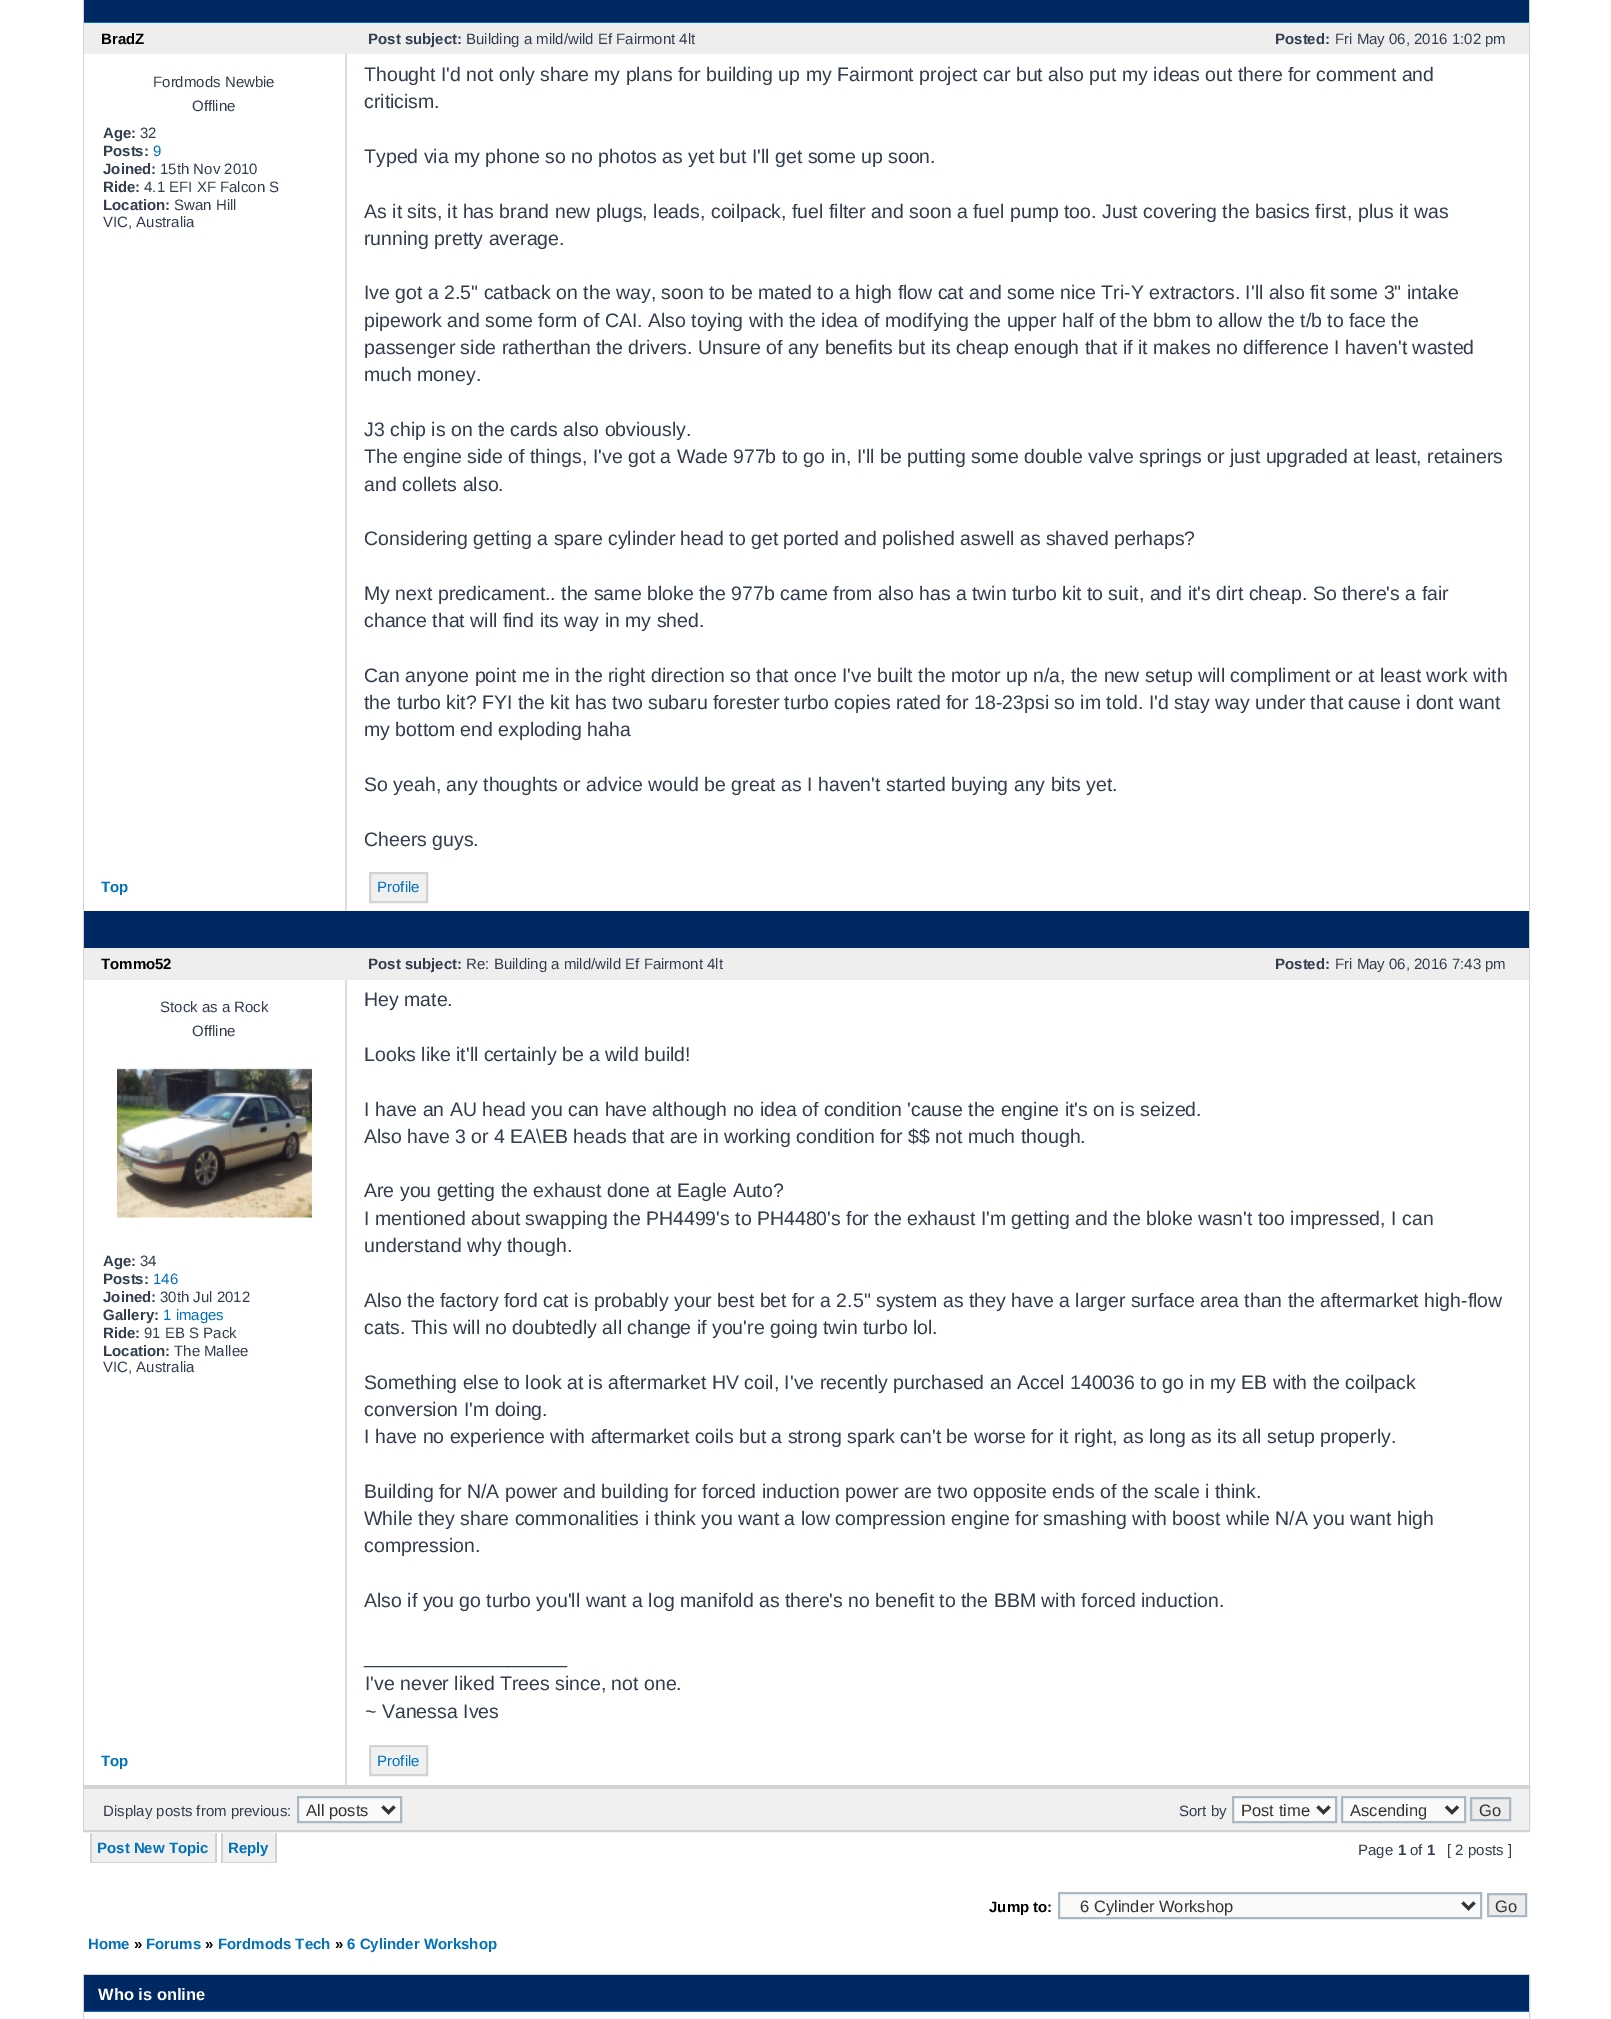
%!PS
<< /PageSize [1611 2019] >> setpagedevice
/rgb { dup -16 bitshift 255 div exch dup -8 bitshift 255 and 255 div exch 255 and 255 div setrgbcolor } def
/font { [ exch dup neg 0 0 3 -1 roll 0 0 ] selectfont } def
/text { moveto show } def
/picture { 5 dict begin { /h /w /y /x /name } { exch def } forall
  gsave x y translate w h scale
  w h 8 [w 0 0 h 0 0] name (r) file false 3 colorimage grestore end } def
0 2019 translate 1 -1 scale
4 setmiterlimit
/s1 { /LiberationSans-Bold 15 font 16#000000 rgb } def
/s2 { /LiberationSans-Bold 15 font 16#323D4F rgb } def
/s3 { /LiberationSans-Regular 15 font 16#323D4F rgb } def
/s4 { /LiberationSans-Regular 15 font 16#0071BC rgb } def
/s5 { /LiberationSans-Regular 19.5 font 16#323D4F rgb } def
/s6 { /LiberationSans-Bold 15 font 16#0071BC rgb } def
/s7 { /LiberationSans-Regular 21.5 font 16#323D4F rgb } def
/s8 { /LiberationSans-Regular 16.5 font 16#333333 rgb } def
/s9 { /LiberationSans-Bold 16.5 font 16#FFFFFF rgb } def
16#FFFFFF rgb
0 0 1611 2019 rectfill
16#D3D3D3 rgb
1529 0 1 1788 rectfill
83 0 1 1788 rectfill
16#0071BC rgb
84 22 1445 1 rectfill
16#002863 rgb
84 0 1445 22 rectfill
16#EEEEEE rgb
84 23 1445 31 rectfill
s1
(BradZ) 101 44 text
s2
(Post subject:) 368 44 text
s3
(Building a mild/wild Ef Fairmont 4lt) 466 44 text
s2
(Posted:) 1275 44 text
s3
(Fri May 06, 2016 1:02 pm) 1335 44 text
(Fordmods Newbie) 153 87 text
(Offline) 192 111 text
s2
(Age:) 103 138 text
s3
(32) 140 138 text
s2
(Posts:) 103 156 text
s4
(9) 153 156 text
s2
(Joined:) 103 174 text
s3
(15th Nov 2010) 160 174 text
s2
(Ride:) 103 192 text
s3
(4.1 EFI XF Falcon S) 144 192 text
s2
(Location:) 103 210 text
s3
(Swan Hill) 174 210 text
(VIC, Australia) 103 227 text
16#DDDDDD rgb
345 54 2 860 rectfill
s5
(Thought I'd not only share my plans for building up my Fairmont project car but also put my ideas out there for comment and) 364 81 text
(criticism.) 364 108 text
(Typed via my phone so no photos as yet but I'll get some up soon.) 364 163 text
(As it sits, it has brand new plugs, leads, coilpack, fuel filter and soon a fuel pump too. Just covering the basics first, plus it was) 364 218 text
(running pretty average.) 364 245 text
(Ive got a 2.5" catback on the way, soon to be mated to a high flow cat and some nice Tri-Y extractors. I'll also fit some 3" intake) 364 299 text
(pipework and some form of CAI. Also toying with the idea of modifying the upper half of the bbm to allow the t/b to face the) 364 327 text
(passenger side ratherthan the drivers. Unsure of any benefits but its cheap enough that if it makes no difference I haven't wasted) 364 354 text
(much money.) 364 381 text
(J3 chip is on the cards also obviously.) 364 436 text
(The engine side of things, I've got a Wade 977b to go in, I'll be putting some double valve springs or just upgraded at least, retainers) 364 463 text
(and collets also.) 364 491 text
(Considering getting a spare cylinder head to get ported and polished aswell as shaved perhaps?) 364 545 text
(My next predicament.. the same bloke the 977b came from also has a twin turbo kit to suit, and it's dirt cheap. So there's a fair) 364 600 text
(chance that will find its way in my shed.) 364 627 text
(Can anyone point me in the right direction so that once I've built the motor up n/a, the new setup will compliment or at least work with) 364 682 text
(the turbo kit? FYI the kit has two subaru forester turbo copies rated for 18-23psi so im told. I'd stay way under that cause i dont want) 364 709 text
(my bottom end exploding haha) 364 736 text
(So yeah, any thoughts or advice would be great as I haven't started buying any bits yet.) 364 791 text
(Cheers guys.) 364 846 text
s6
(Top) 101 892 text
16#F0F0F0 rgb
370 873 moveto 427 873 lineto 427 902 lineto 370 902 lineto closepath gsave fill grestore
16#D3D3D3 rgb
2 setlinewidth
stroke
s4
(Profile) 377 892 text
16#002863 rgb
84 911 1445 37 rectfill
16#EEEEEE rgb
84 948 1445 32 rectfill
s1
(Tommo52) 101 969 text
s2
(Post subject:) 368 969 text
s3
(Re: Building a mild/wild Ef Fairmont 4lt) 466 969 text
s2
(Posted:) 1275 969 text
s3
(Fri May 06, 2016 7:43 pm) 1335 969 text
(Stock as a Rock) 160 1012 text
(Offline) 192 1036 text
(pic1.raw) 117 1068 195 150 picture
s2
(Age:) 103 1266 text
s3
(34) 140 1266 text
s2
(Posts:) 103 1284 text
s4
(146) 153 1284 text
s2
(Joined:) 103 1302 text
s3
(30th Jul 2012) 160 1302 text
s2
(Gallery:) 103 1320 text
s4
(1 images) 163 1320 text
s2
(Ride:) 103 1338 text
s3
(91 EB S Pack) 144 1338 text
s2
(Location:) 103 1356 text
s3
(The Mallee) 174 1356 text
(VIC, Australia) 103 1372 text
16#DDDDDD rgb
345 980 2 807 rectfill
s5
(Hey mate.) 364 1006 text
(Looks like it'll certainly be a wild build!) 364 1061 text
(I have an AU head you can have although no idea of condition 'cause the engine it's on is seized.) 364 1116 text
(Also have 3 or 4 EA\\EB heads that are in working condition for $$ not much though.) 364 1143 text
(Are you getting the exhaust done at Eagle Auto?) 364 1197 text
(I mentioned about swapping the PH4499's to PH4480's for the exhaust I'm getting and the bloke wasn't too impressed, I can) 364 1225 text
(understand why though.) 364 1252 text
(Also the factory ford cat is probably your best bet for a 2.5" system as they have a larger surface area than the aftermarket high-flow) 364 1307 text
(cats. This will no doubtedly all change if you're going twin turbo lol.) 364 1334 text
(Something else to look at is aftermarket HV coil, I've recently purchased an Accel 140036 to go in my EB with the coilpack) 364 1389 text
(conversion I'm doing.) 364 1416 text
(I have no experience with aftermarket coils but a strong spark can't be worse for it right, as long as its all setup properly.) 364 1443 text
(Building for N/A power and building for forced induction power are two opposite ends of the scale i think.) 364 1498 text
(While they share commonalities i think you want a low compression engine for smashing with boost while N/A you want high) 364 1525 text
(compression.) 364 1552 text
(Also if you go turbo you'll want a log manifold as there's no benefit to the BBM with forced induction.) 364 1607 text
s7
(_________________) 364 1663 text
s5
(I've never liked Trees since, not one.) 365 1690 text
(~ Vanessa Ives) 365 1718 text
s6
(Top) 101 1766 text
16#F0F0F0 rgb
370 1746 moveto 427 1746 lineto 427 1775 lineto 370 1775 lineto closepath gsave fill grestore
16#D3D3D3 rgb
stroke
s4
(Profile) 377 1766 text
16#D3D3D3 rgb
84 1786 1445 45 rectstroke
16#F0F0F0 rgb
84 1789 1445 41 rectfill
16#D3D3D3 rgb
84 1787 1445 2 rectfill
s3
(Display posts from previous:) 103 1816 text
16#FAFAFA rgb
298 1797 moveto 401 1797 lineto 401 1822 lineto 298 1822 lineto closepath gsave fill grestore
16#A9B8C2 rgb
stroke
16#333333 rgb
3 setlinewidth
382.5 1806.5 moveto 388.5 1812.5 lineto 394.5 1806.5 lineto stroke
s8
(All posts) 306 1816 text
s3
(Sort by) 1179 1816 text
16#FAFAFA rgb
1233 1797 moveto 1336 1797 lineto 1336 1822 lineto 1233 1822 lineto closepath gsave fill grestore
16#A9B8C2 rgb
2 setlinewidth
stroke
16#333333 rgb
3 setlinewidth
1317.5 1806.5 moveto 1323.5 1812.5 lineto 1329.5 1806.5 lineto stroke
s8
(Post time) 1241 1816 text
16#FAFAFA rgb
1342 1797 moveto 1465 1797 lineto 1465 1822 lineto 1342 1822 lineto closepath gsave fill grestore
16#A9B8C2 rgb
2 setlinewidth
stroke
16#333333 rgb
3 setlinewidth
1446 1806.5 moveto 1452 1812.5 lineto 1458 1806.5 lineto stroke
(Ascending) 1350 1816 text
16#ECECEC rgb
1471 1798 moveto 1510 1798 lineto 1510 1820 lineto 1471 1820 lineto closepath gsave fill grestore
16#A9B8C2 rgb
2 setlinewidth
stroke
s8
(Go) 1479 1816 text
16#F0F0F0 rgb
92 1833 123 29 rectfill
s6
(Post New Topic) 97 1853 text
16#D3D3D3 rgb
215 1833 2 30 rectfill
90 1862 126 1 rectfill
90 1833 2 30 rectfill
16#F0F0F0 rgb
223 1833 52 29 rectfill
s6
(Reply) 228 1853 text
16#D3D3D3 rgb
275 1833 2 30 rectfill
221 1862 55 1 rectfill
221 1833 2 30 rectfill
s3
(Page) 1358 1855 text
s2
(1) 1398 1855 text
s3
(of) 1410 1855 text
s2
(1) 1427 1855 text
s3
([ 2 posts ]) 1447 1855 text
s1
(Jump to:) 989 1912 text
16#FAFAFA rgb
1059 1893 moveto 1481 1893 lineto 1481 1918 lineto 1059 1918 lineto closepath gsave fill grestore
16#A9B8C2 rgb
stroke
16#333333 rgb
3 setlinewidth
1462.5 1902.5 moveto 1468.5 1908.5 lineto 1474.5 1902.5 lineto stroke
s8
(6 Cylinder Workshop) 1080 1912 text
16#ECECEC rgb
1488 1894 moveto 1526 1894 lineto 1526 1916 lineto 1488 1916 lineto closepath gsave fill grestore
16#A9B8C2 rgb
2 setlinewidth
stroke
s8
(Go) 1495 1912 text
s6
(Home) 88 1949 text
s1
(») 134 1949 text
s6
(Forums) 146 1949 text
s1
(») 205 1949 text
s6
(Fordmods Tech) 218 1949 text
s1
(») 335 1949 text
s6
(6 Cylinder Workshop) 347 1949 text
16#D3D3D3 rgb
84 1975 1445 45 rectstroke
16#0071BC rgb
84 2011 1445 1 rectfill
16#002863 rgb
84 1975 1445 36 rectfill
s9
(Who is online) 98 2000 text
84 2012 1445 7 rectfill
showpage
